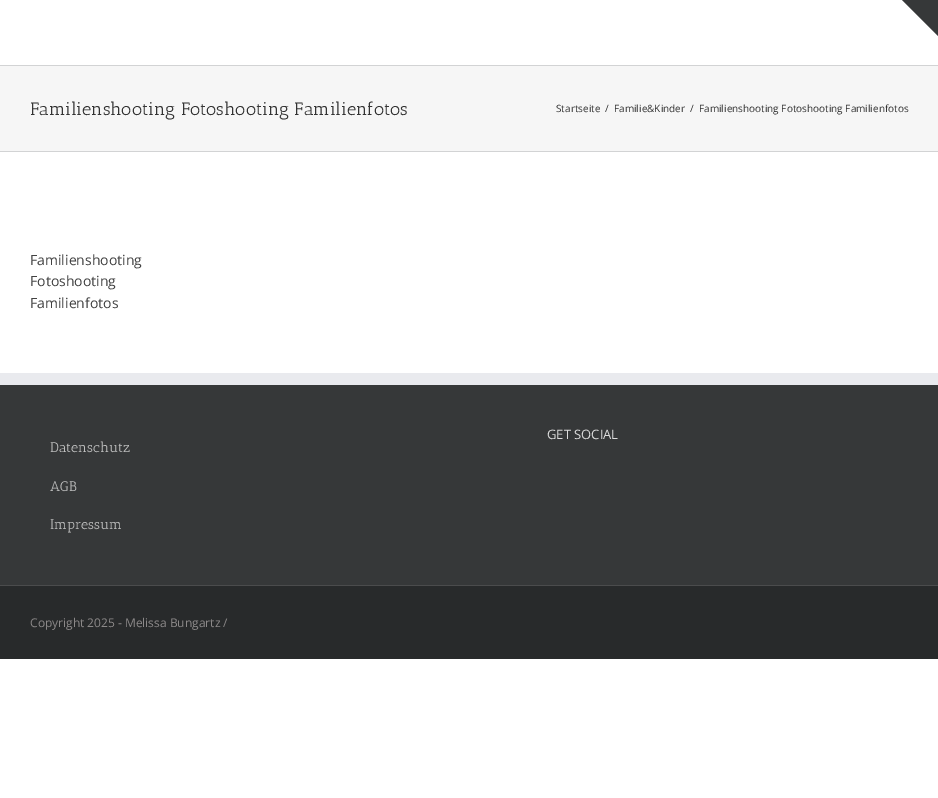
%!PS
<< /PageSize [938 798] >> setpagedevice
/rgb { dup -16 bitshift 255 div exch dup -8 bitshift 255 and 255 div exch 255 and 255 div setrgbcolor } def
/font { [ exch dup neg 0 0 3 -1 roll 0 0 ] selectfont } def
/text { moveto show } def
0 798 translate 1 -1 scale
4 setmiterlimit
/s1 { /AnticSlab-Regular 18 font 16#333333 rgb } def
/s2 { /OpenSans-Regular 10 font 16#333333 rgb } def
/s3 { /OpenSans-Regular 14 font 16#424242 rgb } def
/s4 { /OpenSans-Regular 13 font 16#DDDDDD rgb } def
/s5 { /AnticSlab-Regular 14 font 16#BFBFBF rgb } def
/s6 { /OpenSans-Regular 12 font 16#8C8989 rgb } def
16#FFFFFF rgb
0 0 938 798 rectfill
16#363839 rgb
902 0 moveto 938 0 lineto 938 36 lineto closepath fill
16#F6F6F6 rgb
0 66 938 85 rectfill
16#D2D3D4 rgb
0 65 938 1 rectfill
0 151 938 1 rectfill
s1
(Familienshooting Fotoshooting Familienfotos) 30 115 text
s2
(Startseite) 556 112 text
(/) 605 112 text
(Familie&Kinder) 614 112 text
(/) 690 112 text
(Familienshooting Fotoshooting Familienfotos) 699 112 text
s3
(Familienshooting) 30 265 text
(Fotoshooting) 30 286 text
(Familienfotos) 30 308 text
16#363839 rgb
0 385 938 200 rectfill
16#E9EAEE rgb
0 373 938 12 rectfill
s4
(GET SOCIAL) 547 439 text
s5
(Datenschutz) 50 452 text
(AGB) 50 491 text
(Impressum) 50 529 text
16#282A2B rgb
0 586 938 73 rectfill
16#4B4C4D rgb
0 585 938 1 rectfill
s6
(Copyright 2025 - Melissa Bungartz /) 30 627 text
showpage
